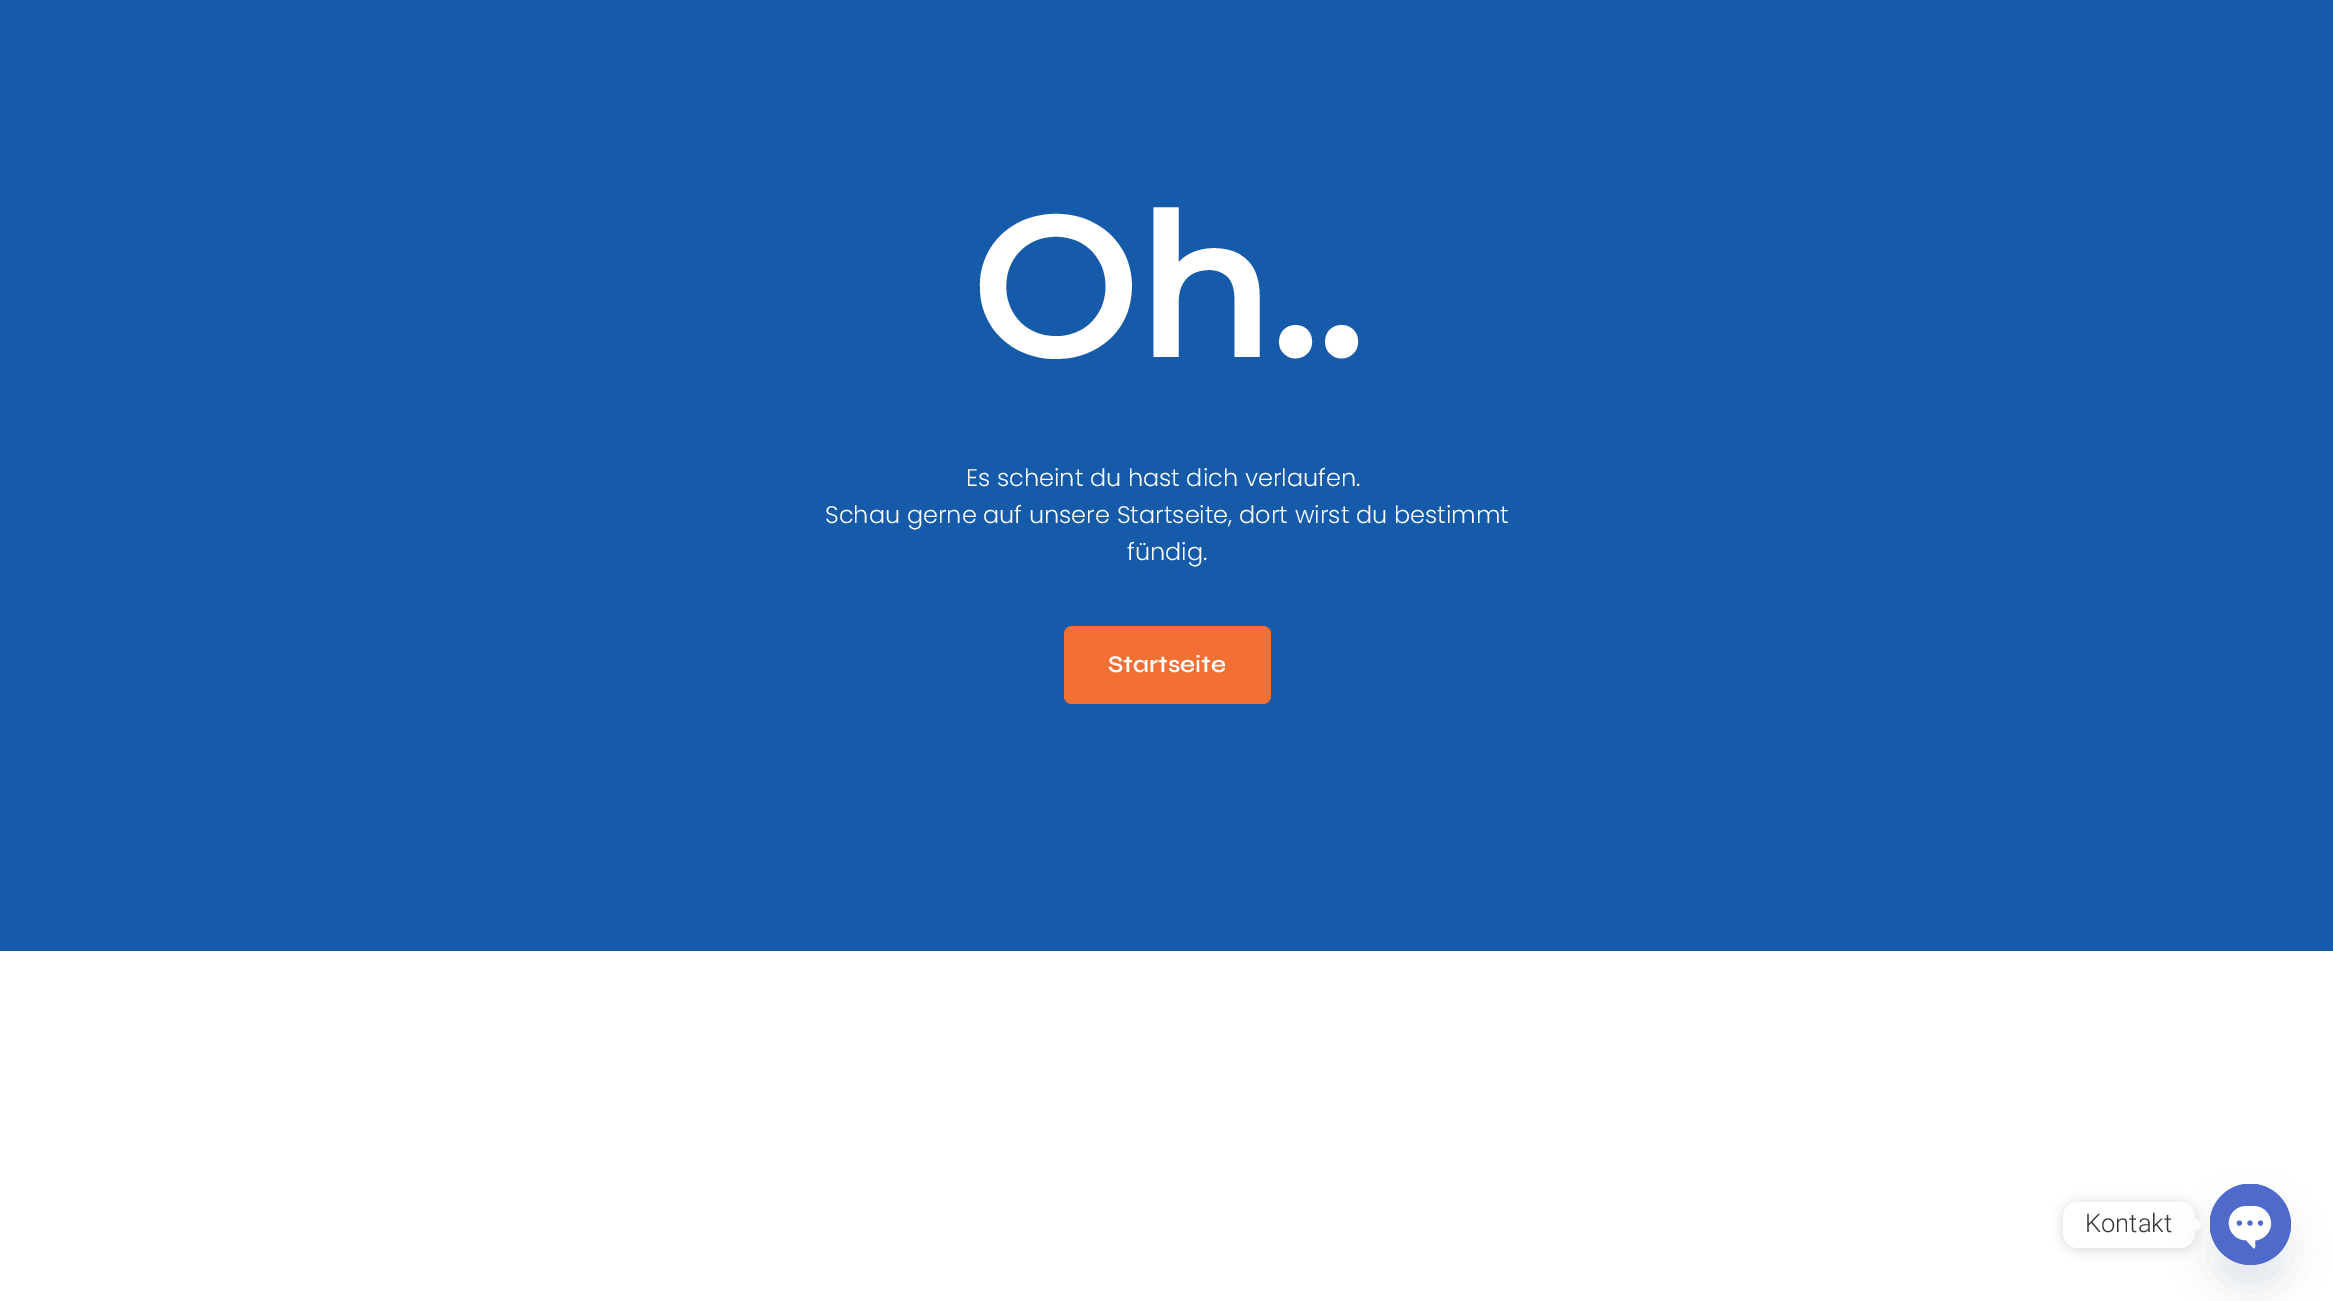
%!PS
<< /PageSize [2333 1301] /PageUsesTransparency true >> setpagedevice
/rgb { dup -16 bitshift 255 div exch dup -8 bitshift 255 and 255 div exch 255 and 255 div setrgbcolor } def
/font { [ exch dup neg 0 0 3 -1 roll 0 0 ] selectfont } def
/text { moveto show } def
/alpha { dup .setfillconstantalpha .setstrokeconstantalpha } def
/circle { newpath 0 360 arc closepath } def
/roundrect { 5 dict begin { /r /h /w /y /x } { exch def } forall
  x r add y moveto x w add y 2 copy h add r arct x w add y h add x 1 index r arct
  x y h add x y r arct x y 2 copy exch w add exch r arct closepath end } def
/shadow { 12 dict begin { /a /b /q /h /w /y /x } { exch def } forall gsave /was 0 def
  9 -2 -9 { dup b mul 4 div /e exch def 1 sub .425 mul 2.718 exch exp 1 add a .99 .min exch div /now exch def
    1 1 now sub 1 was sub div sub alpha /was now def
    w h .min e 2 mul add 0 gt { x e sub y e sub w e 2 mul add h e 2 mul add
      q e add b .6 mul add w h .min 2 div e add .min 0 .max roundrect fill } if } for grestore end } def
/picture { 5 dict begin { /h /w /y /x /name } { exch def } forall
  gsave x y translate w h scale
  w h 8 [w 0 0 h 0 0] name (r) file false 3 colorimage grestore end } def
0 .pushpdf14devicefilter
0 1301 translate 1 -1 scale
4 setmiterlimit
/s1 { /Poppins-Light 24 font 16#FFFFFF rgb } def
/s2 { /Syne-SemiBold 24 font 16#FFFFFF rgb } def
/s3 { /Roboto-Light 25.5 font 16#333333 rgb } def
16#FFFFFF rgb
0 0 2333 1301 rectfill
16#165BA9 rgb
0 0 2333 951 rectfill
/Montserrat-SemiBold 202 font
16#FFFFFF rgb
971 357 moveto -4 0 (Oh..) ashow
s1
(Es scheint du hast dich verlaufen.) 966 486 text
(Schau gerne auf unsere Startseite, dort wirst du bestimmt) 825 523 text
(fündig.) 1127 560 text
16#F27033 rgb
1064 626 207 78 8 roundrect fill
s2
(Startseite) 1108 672 text
16#000000 rgb
2063 1203 132 47 15 6 0.15 shadow
16#FFFFFF rgb
2063 1202 132 46 15 roundrect fill
s3
(Kontakt) 2085 1232 text
16#FFFFFF rgb
2194.5 1232 moveto 2194.5 1217 lineto 2202 1225 lineto closepath fill
16#49687E rgb
2210 1208 81 81 40.5 18 0.16 shadow
16#4F6ACA rgb
2250.5 1224.5 40.5 circle fill
(pic1.raw) 2210 1184 81 81 picture
.poppdf14devicefilter showpage
